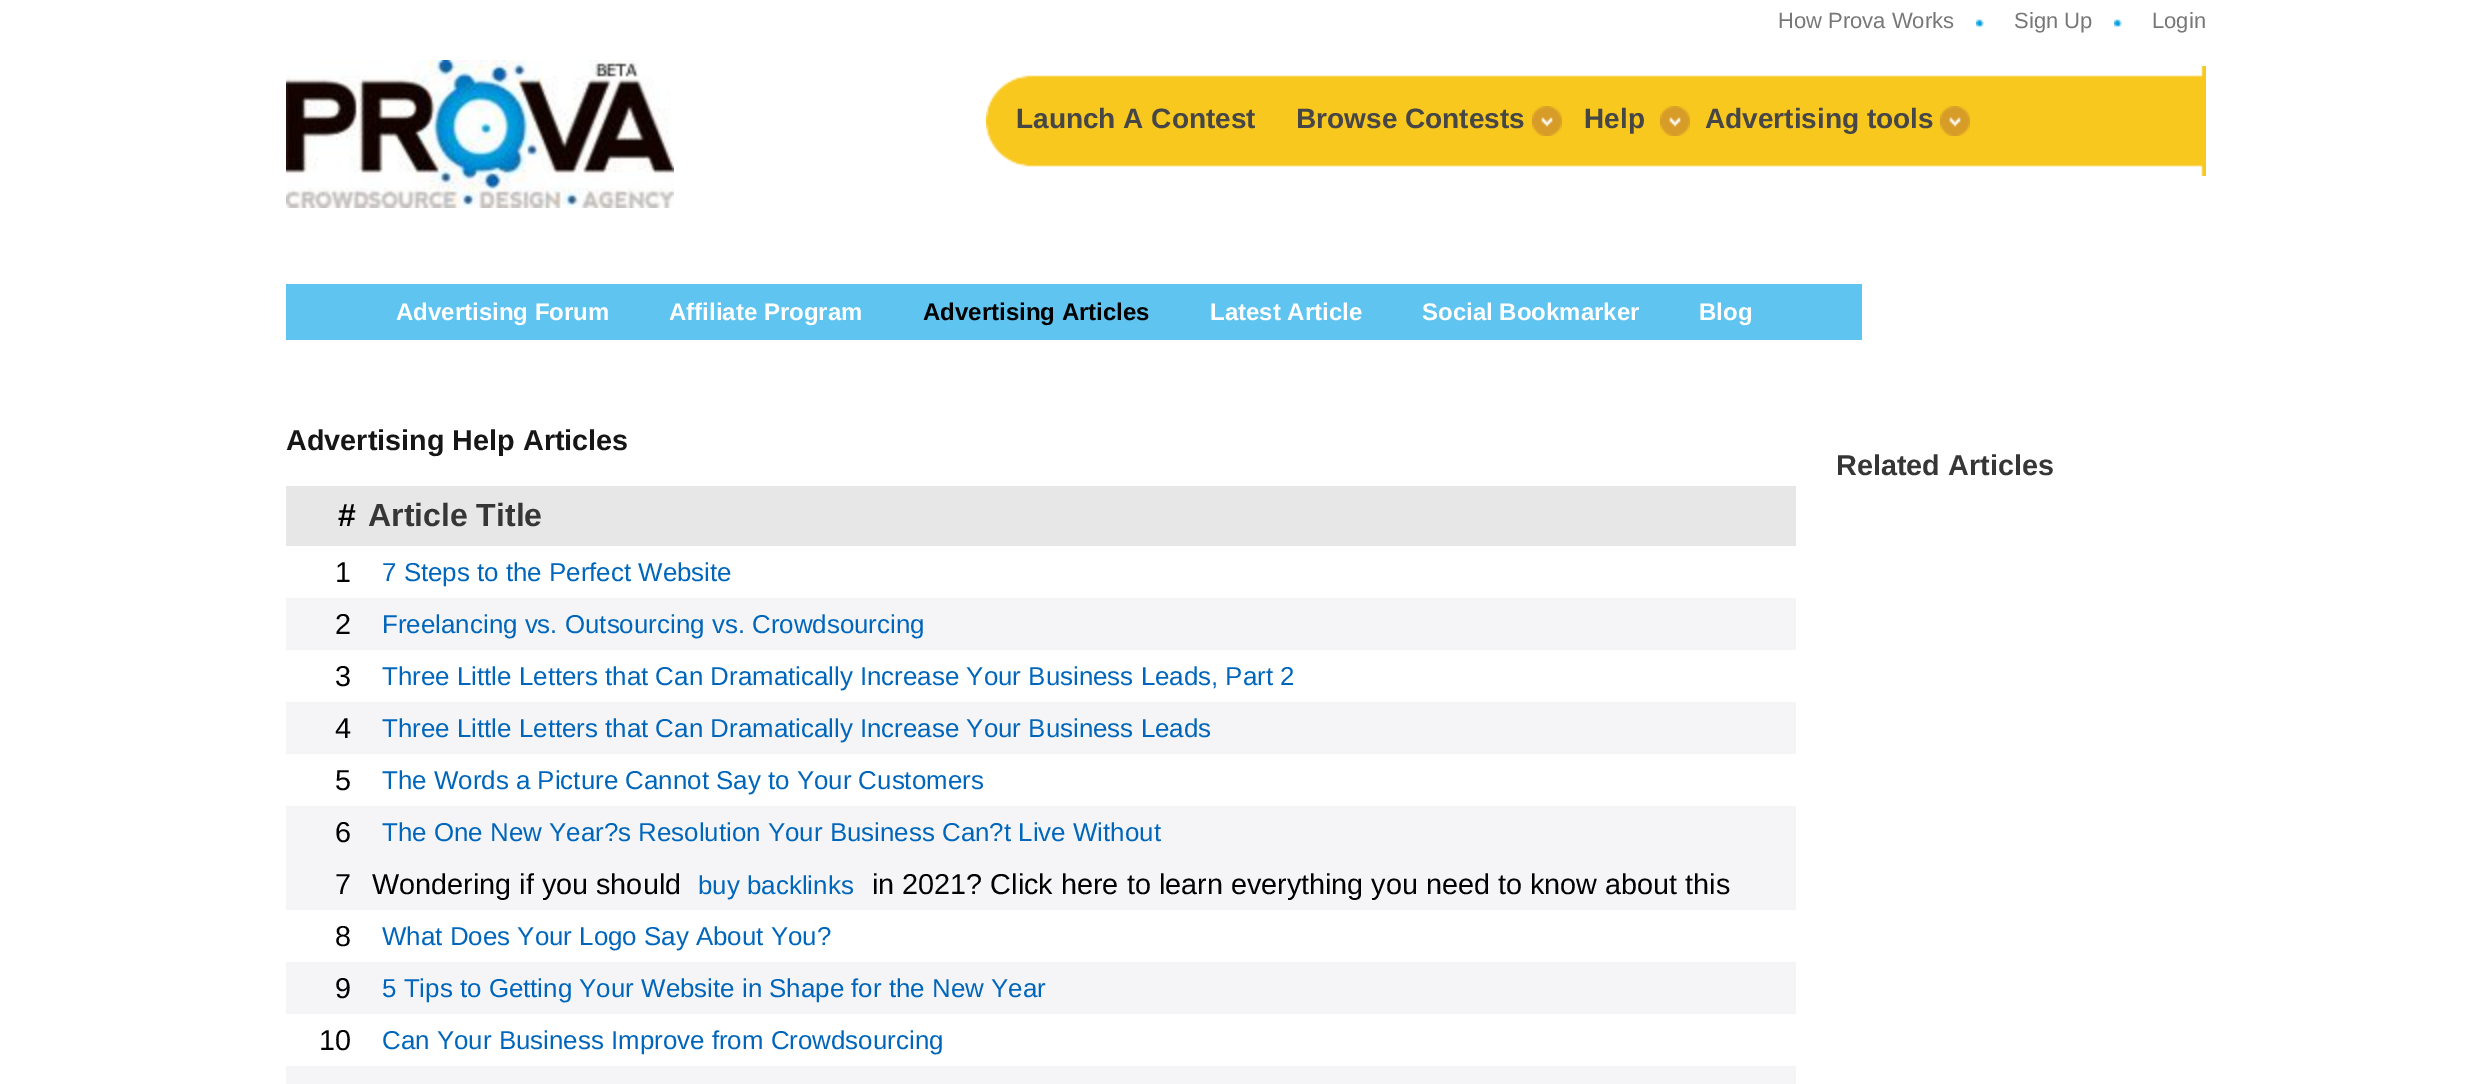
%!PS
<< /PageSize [2492 1084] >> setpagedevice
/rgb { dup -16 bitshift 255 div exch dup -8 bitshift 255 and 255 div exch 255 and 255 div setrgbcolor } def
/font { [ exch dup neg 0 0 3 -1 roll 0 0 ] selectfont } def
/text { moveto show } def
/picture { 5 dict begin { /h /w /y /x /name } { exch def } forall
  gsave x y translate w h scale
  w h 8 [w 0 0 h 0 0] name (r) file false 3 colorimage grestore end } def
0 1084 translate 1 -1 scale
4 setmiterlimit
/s1 { /LiberationSans-Regular 22 font 16#777777 rgb } def
/s2 { /LiberationSans-Bold 28 font 16#464646 rgb } def
/s3 { /LiberationSans-Bold 24 font 16#FFFFFF rgb } def
/s4 { /LiberationSans-Bold 24 font 16#000000 rgb } def
/s5 { /LiberationSans-Bold 28.8 font 16#161616 rgb } def
/s6 { /LiberationSans-Bold 32 font 16#000000 rgb } def
/s7 { /LiberationSans-Bold 32 font 16#363636 rgb } def
/s8 { /LiberationSans-Regular 28.8 font 16#000000 rgb } def
/s9 { /LiberationSans-Regular 25.9 font 16#0066BB rgb } def
/s10 { /LiberationSans-Bold 28.8 font 16#363636 rgb } def
16#FFFFFF rgb
0 0 2492 1084 rectfill
(pic1.raw) 286 60 388 148 picture
s1
(How Prova Works) 1778 28 text
(pic2.raw) 1976 19 8 9 picture
(Sign Up) 2014 28 text
(pic2.raw) 2114 19 8 9 picture
(Login) 2152 28 text
(pic3.raw) 986 66 1220 110 picture
s2
(Launch A Contest) 1016 128 text
(pic4.raw) 1532 106 30 30 picture
(Browse Contests) 1296 128 text
(pic4.raw) 1660 106 30 30 picture
(Help) 1584 128 text
(pic4.raw) 1940 106 30 30 picture
(Advertising tools) 1705 128 text
16#5FC4F0 rgb
286 284 1576 56 rectfill
s3
(Advertising Forum) 396 320 text
(Affiliate Program) 669 320 text
s4
(Advertising Articles) 923 320 text
s3
(Latest Article) 1210 320 text
(Social Bookmarker) 1422 320 text
(Blog) 1699 320 text
s5
(Advertising Help Articles) 286 450 text
16#E7E7E7 rgb
286 486 1510 60 rectfill
s6
(#) 338 526 text
s7
(Article Title) 368 526 text
s8
(1) 335 582 text
s9
(7 Steps to the Perfect Website) 382 581 text
16#F5F5F7 rgb
286 598 1510 52 rectfill
s8
(2) 335 634 text
s9
(Freelancing vs. Outsourcing vs. Crowdsourcing) 382 633 text
s8
(3) 335 686 text
s9
(Three Little Letters that Can Dramatically Increase Your Business Leads, Part 2) 382 685 text
16#F5F5F7 rgb
286 702 1510 52 rectfill
s8
(4) 335 738 text
s9
(Three Little Letters that Can Dramatically Increase Your Business Leads) 382 737 text
s8
(5) 335 790 text
s9
(The Words a Picture Cannot Say to Your Customers) 382 789 text
16#F5F5F7 rgb
286 806 1510 52 rectfill
s8
(6) 335 842 text
s9
(The One New Year?s Resolution Your Business Can?t Live Without) 382 841 text
16#F5F5F7 rgb
286 858 1510 52 rectfill
s8
(7) 335 894 text
(Wondering if you should) 372 894 text
s9
(buy backlinks) 698 894 text
s8
(in 2021? Click here to learn everything you need to know about this) 872 894 text
(8) 335 946 text
s9
(What Does Your Logo Say About You?) 382 945 text
16#F5F5F7 rgb
286 962 1510 52 rectfill
s8
(9) 335 998 text
s9
(5 Tips to Getting Your Website in Shape for the New Year) 382 997 text
s8
(10) 319 1050 text
s9
(Can Your Business Improve from Crowdsourcing) 382 1049 text
16#F5F5F7 rgb
286 1066 1510 18 rectfill
s10
(Related Articles) 1836 475 text
showpage
